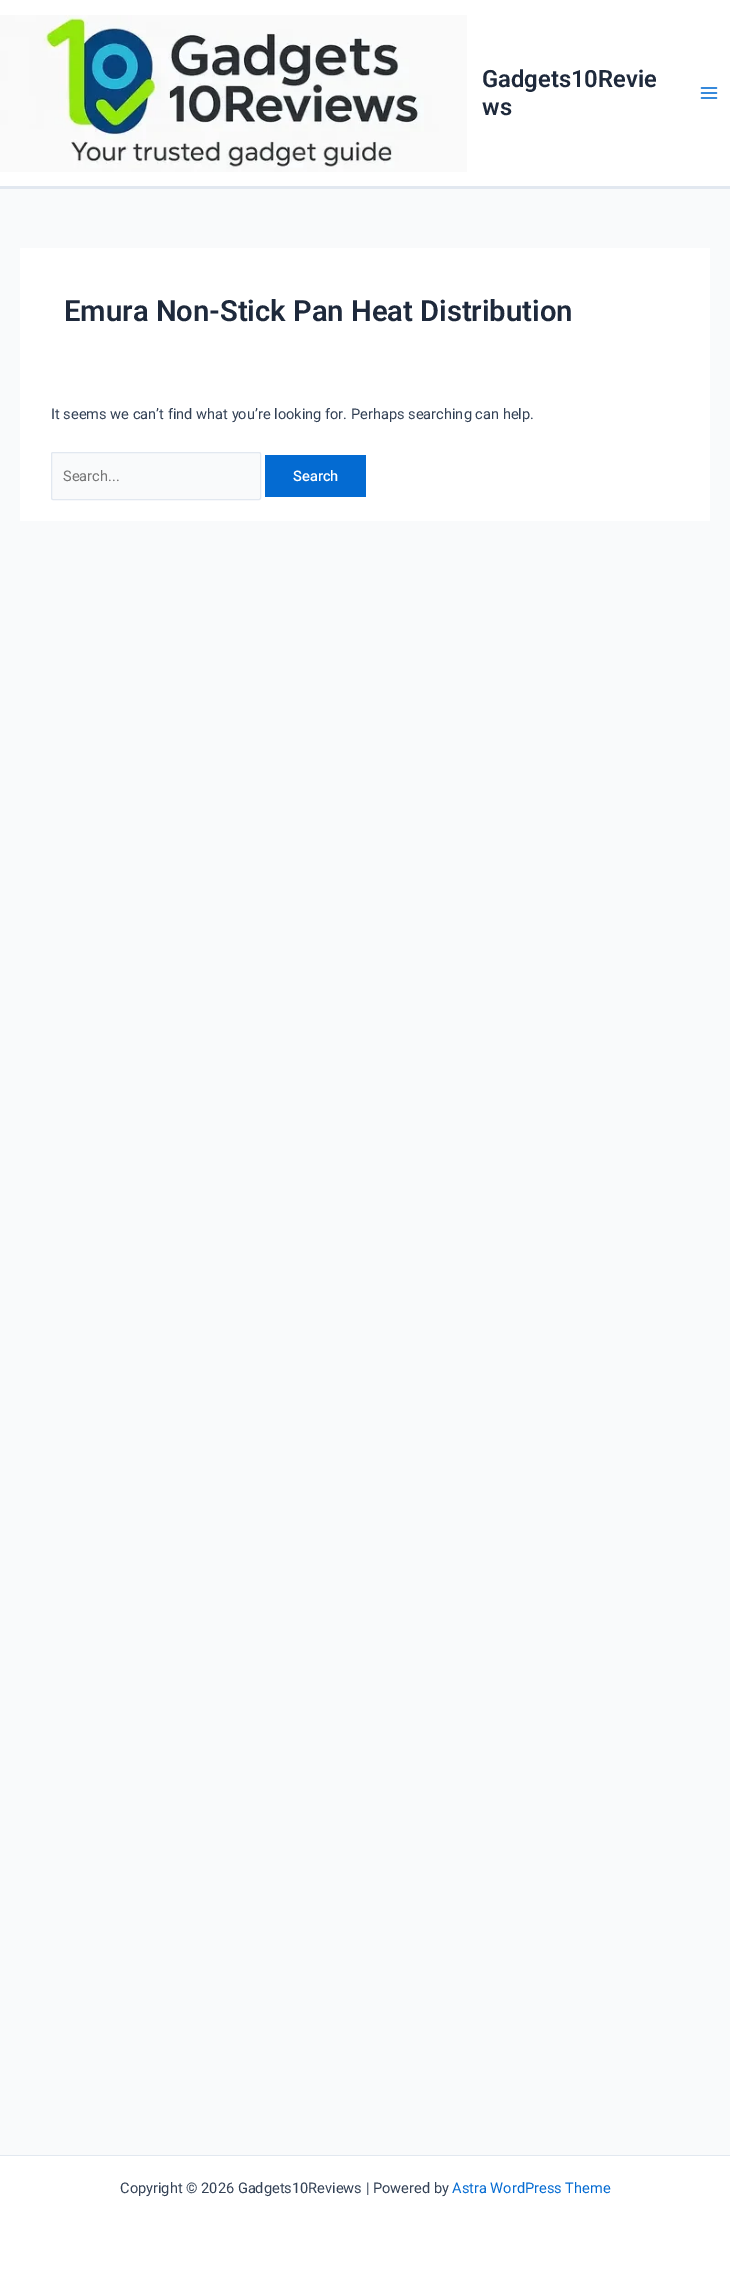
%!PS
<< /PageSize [730 2276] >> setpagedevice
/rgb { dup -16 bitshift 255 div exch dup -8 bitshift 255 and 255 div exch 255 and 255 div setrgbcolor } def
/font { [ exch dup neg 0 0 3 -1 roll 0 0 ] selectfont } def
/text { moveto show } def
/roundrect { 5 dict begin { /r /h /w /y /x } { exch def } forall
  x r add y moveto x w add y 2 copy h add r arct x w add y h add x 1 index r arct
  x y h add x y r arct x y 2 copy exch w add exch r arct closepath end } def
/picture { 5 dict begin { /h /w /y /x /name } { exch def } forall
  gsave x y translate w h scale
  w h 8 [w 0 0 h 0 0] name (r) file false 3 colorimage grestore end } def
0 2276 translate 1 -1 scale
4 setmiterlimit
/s1 { /Roboto-SemiBold 23.75 font 16#1E293B rgb } def
/s2 { /Roboto-SemiBold 29.2 font 16#1E293B rgb } def
/s3 { /Roboto-Regular 14.6 font 16#334155 rgb } def
/s4 { /Roboto-Regular 14.6 font 16#757575 rgb } def
/s5 { /Roboto-Medium 14.6 font 16#FFFFFF rgb } def
/s6 { /Roboto-Regular 14.6 font 16#046BD2 rgb } def
16#F9FAFB rgb
0 0 730 2276 rectfill
16#FFFFFF rgb
0 0 730 186 rectfill
16#E2E8F0 rgb
0 186 730 3 rectfill
(pic1.raw) 0 15 467 157 picture
s1
(Gadgets10Revie) 482 87 text
(ws) 482 115 text
(pic2.raw) 700 87 18 12 picture
16#FFFFFF rgb
20 248 690 273 rectfill
s2
(Emura Non-Stick Pan Heat Distribution) 64 321 text
s3
(It seems we can’t find what you’re looking for. Perhaps searching can help.) 51 419 text
16#F9FAFB rgb
51.5 452.5 209 47 1.5 roundrect gsave fill grestore
16#E2E8F0 rgb
stroke
s4
(Search...) 63 481 text
16#046BD2 rgb
265 455 101 42 rectfill
s5
(Search) 293 481 text
0 2156 730 120 rectfill
16#E2E8F0 rgb
0 2155 730 1 rectfill
s3
(Copyright © 2026 Gadgets10Reviews | Powered by) 120 2193 text
s6
(Astra WordPress Theme) 452 2193 text
showpage
